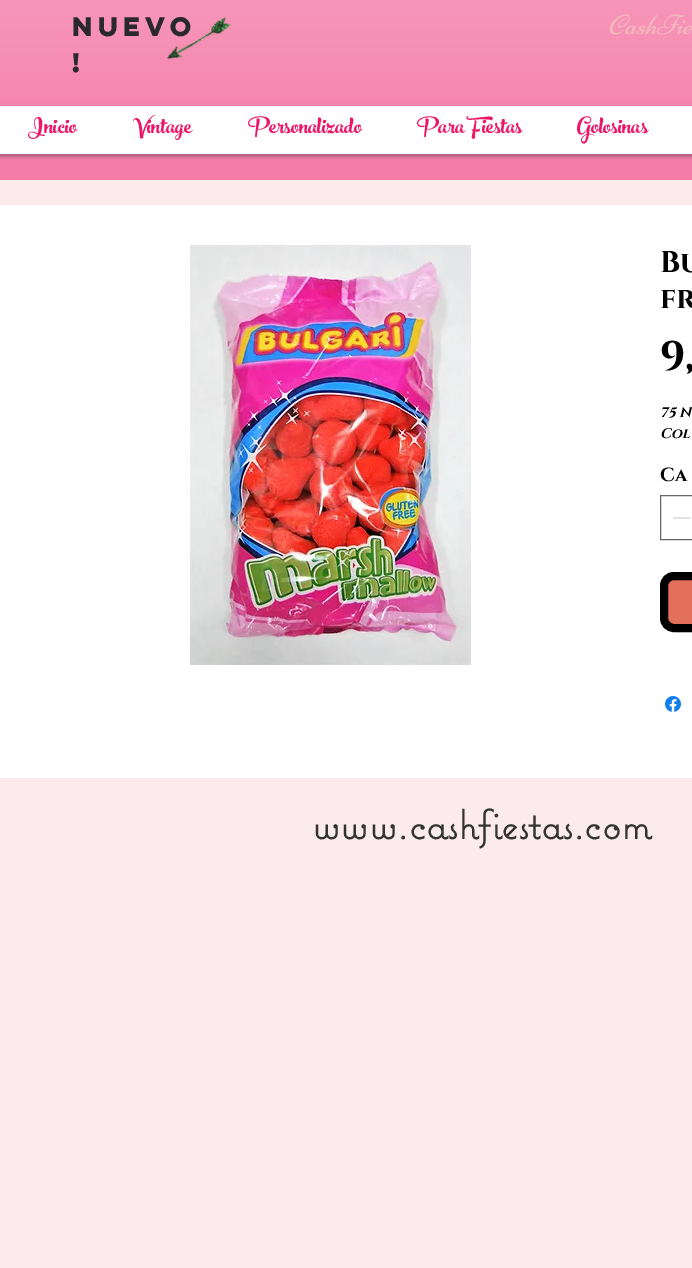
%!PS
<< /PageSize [692 1268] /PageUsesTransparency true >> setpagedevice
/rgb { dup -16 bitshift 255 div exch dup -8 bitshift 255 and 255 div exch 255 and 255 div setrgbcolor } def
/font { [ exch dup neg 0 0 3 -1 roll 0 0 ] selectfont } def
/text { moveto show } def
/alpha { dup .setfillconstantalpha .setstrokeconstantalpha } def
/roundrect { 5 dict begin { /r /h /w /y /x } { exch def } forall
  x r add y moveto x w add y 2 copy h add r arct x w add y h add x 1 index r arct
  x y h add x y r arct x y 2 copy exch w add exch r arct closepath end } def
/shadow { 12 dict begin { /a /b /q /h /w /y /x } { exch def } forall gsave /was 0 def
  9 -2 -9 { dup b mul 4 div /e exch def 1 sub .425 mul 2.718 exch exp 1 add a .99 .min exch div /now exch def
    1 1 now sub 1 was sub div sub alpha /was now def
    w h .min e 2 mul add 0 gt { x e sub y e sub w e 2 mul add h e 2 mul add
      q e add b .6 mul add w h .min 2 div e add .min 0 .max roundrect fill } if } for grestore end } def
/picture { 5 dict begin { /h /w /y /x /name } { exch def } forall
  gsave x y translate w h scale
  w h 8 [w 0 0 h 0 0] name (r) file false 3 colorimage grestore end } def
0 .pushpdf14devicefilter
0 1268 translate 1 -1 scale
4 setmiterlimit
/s1 { /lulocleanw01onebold-Bold 24 font 16#292929 rgb } def
/s2 { /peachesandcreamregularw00-Regular 33 font 16#ED1566 rgb } def
/s3 { /Cinzel-Bold 30 font 16#000000 rgb } def
/s4 { /Cinzel-Bold 40 font 16#000000 rgb } def
/s5 { /Cinzel-BoldItalic 14 font 16#000000 rgb } def
/s6 { /Cinzel-Bold 19 font 16#000000 rgb } def
/s7 { /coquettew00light-Bold 41 font 16#333333 rgb } def
16#FCEBEC rgb
0 0 692 1268 rectfill
16#F371A0 rgb
0 0 692 180 rectfill
(pic1.raw) 0 0 692 180 picture
(pic2.raw) 166 17 65 43 picture
s1
(nuevo) 72 36 text
(!) 72 72 text
(pic3.raw) 609 14 83 21 picture
16#000000 rgb
-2 107 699 50 0 1.5 0.26 shadow
16#FFFFFF rgb
0 106 692 48 rectfill
s2
(Inicio) 28 133 text
(Vintage) 133 133 text
(Personalizado) 248 133 text
(Para Fiestas) 417 133 text
(Golosinas) 577 133 text
16#FFFFFF rgb
0 205 692 573 rectfill
(pic4.raw) 190 245 281 420 picture
s3
(Bu) 660 272 text
(fr) 660 308 text
s4
(9,) 660 369 text
s5
(75 N) 660 417 text
(Col) 660 438 text
s6
(Ca) 660 481 text
16#666666 rgb
660.5 495.5 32 44 rectstroke
16#E3E3E3 rgb
673 517 18 2 rectfill
16#E2705A rgb
664 576 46 52 10 roundrect gsave fill grestore
16#000000 rgb
8 setlinewidth
stroke
(pic5.raw) 665 696 16 16 picture
s7
(www.cashfiestas.com) 312 839 text
.poppdf14devicefilter showpage
